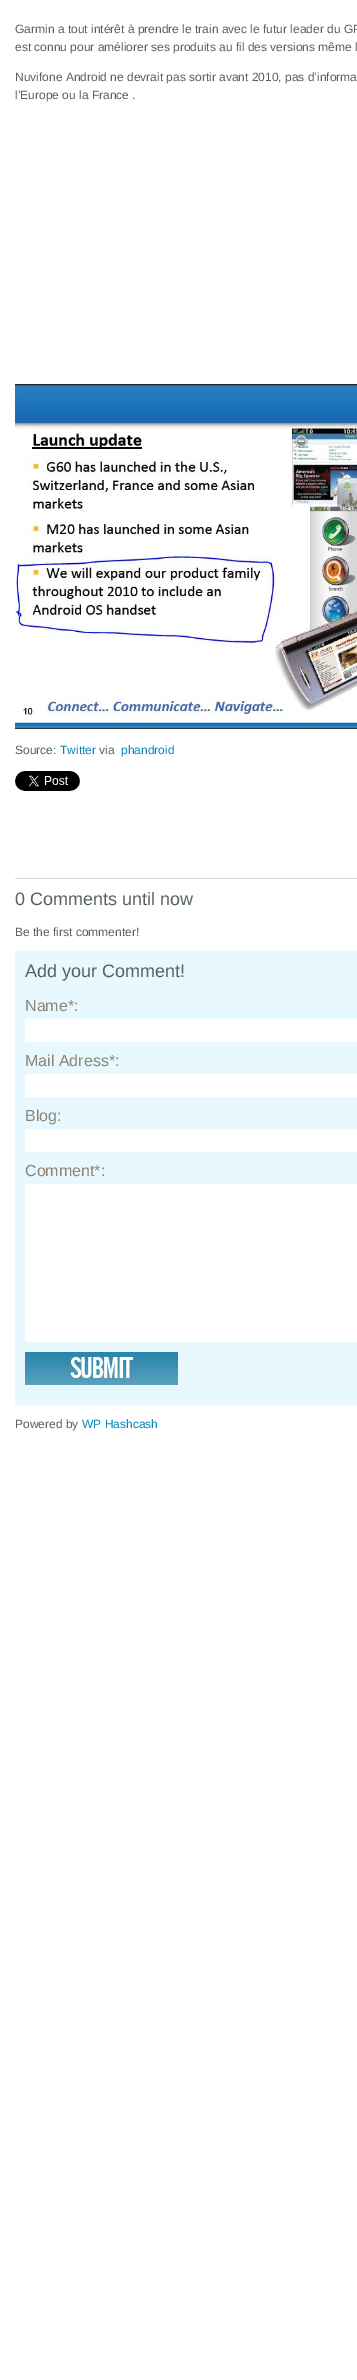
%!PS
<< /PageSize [357 2380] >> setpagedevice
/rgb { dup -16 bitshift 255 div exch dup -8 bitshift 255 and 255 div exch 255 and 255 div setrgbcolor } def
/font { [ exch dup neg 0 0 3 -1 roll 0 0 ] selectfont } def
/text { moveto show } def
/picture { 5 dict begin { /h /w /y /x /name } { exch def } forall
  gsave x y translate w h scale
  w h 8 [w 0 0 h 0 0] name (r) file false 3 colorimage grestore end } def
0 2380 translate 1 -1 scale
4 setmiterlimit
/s1 { /LiberationSans-Regular 12 font 16#576064 rgb } def
/s2 { /LiberationSans-Regular 12 font 16#0685BB rgb } def
/s3 { /LiberationSans-Regular 18 font 16#576064 rgb } def
/s4 { /LiberationSans-Regular 16 font 16#8B8477 rgb } def
16#FFFFFF rgb
0 0 357 2380 rectfill
s1
(Garmin a tout intérêt à prendre le train avec le futur leader du GP) 15 33 text
(est connu pour améliorer ses produits au fil des versions même l) 15 51 text
(Nuvifone Android ne devrait pas sortir avant 2010, pas d’informa) 15 81 text
(l’Europe ou la France .) 15 99 text
(pic1.raw) 15 384 342 345 picture
(Source:) 15 754 text
s2
(Twitter) 60 754 text
s1
(via) 99 754 text
s2
(phandroid) 121 754 text
(pic2.raw) 15 771 65 20 picture
16#CEDDE4 rgb
15 878 342 1 rectfill
s3
(0 Comments until now) 15 905 text
s1
(Be the first commenter!) 15 936 text
16#E7F8FF rgb
15 951 342 454 rectfill
s3
(Add your Comment!) 25 977 text
s4
(Name*:) 25 1011 text
16#FFFFFF rgb
25 1019 332 23 rectfill
s4
(Mail Adress*:) 25 1066 text
16#FFFFFF rgb
25 1074 332 23 rectfill
s4
(Blog:) 25 1121 text
16#FFFFFF rgb
25 1129 332 23 rectfill
s4
(Comment*:) 25 1176 text
16#FFFFFF rgb
25 1184 332 158 rectfill
(pic3.raw) 25 1352 153 33 picture
s1
(Powered by) 15 1428 text
s2
(WP Hashcash) 82 1428 text
showpage
